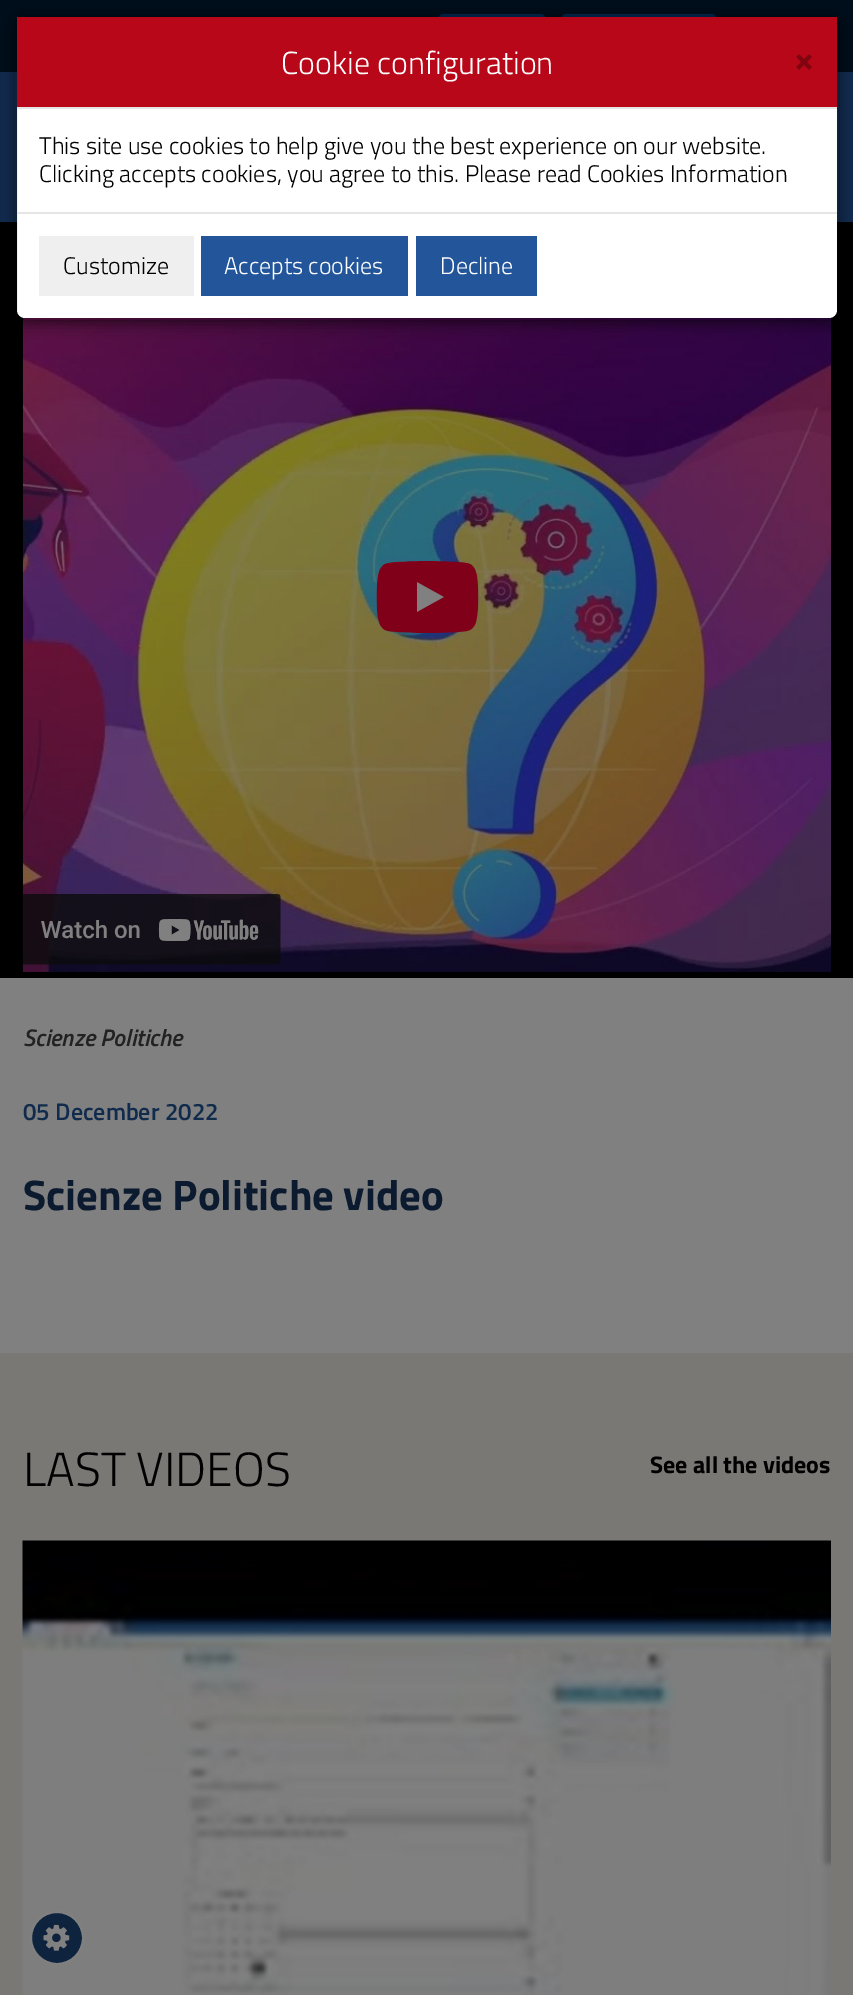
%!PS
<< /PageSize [853 1995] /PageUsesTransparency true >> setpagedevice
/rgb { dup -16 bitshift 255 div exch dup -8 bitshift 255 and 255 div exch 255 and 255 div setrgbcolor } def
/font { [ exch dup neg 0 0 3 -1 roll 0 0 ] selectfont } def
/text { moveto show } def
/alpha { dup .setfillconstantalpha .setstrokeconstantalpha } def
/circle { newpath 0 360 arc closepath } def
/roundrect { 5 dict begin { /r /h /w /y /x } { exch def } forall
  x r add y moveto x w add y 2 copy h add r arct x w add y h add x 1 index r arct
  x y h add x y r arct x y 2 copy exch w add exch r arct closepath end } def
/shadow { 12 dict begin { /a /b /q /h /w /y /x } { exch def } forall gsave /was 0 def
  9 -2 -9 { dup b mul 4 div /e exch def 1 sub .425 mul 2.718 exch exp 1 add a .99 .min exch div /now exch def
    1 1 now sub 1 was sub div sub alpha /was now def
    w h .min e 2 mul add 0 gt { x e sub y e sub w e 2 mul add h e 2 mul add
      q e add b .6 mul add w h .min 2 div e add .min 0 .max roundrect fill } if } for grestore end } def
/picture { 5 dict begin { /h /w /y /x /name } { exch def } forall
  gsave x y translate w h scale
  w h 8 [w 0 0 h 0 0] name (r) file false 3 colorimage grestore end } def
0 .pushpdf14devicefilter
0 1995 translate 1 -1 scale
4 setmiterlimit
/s1 { /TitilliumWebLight-Light 32 font 16#FFFFFF rgb } def
/s2 { /TitilliumWeb-Bold 36 font 16#800511 rgb } def
/s3 { /TitilliumWebLight-Light 24 font 16#000000 rgb } def
/s4 { /TitilliumWebLight-Light 24 font 16#FFFFFF rgb } def
/s5 { /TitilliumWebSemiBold-SemiBoldItalic 24 font 16#222222 rgb } def
/s6 { /TitilliumWebSemiBold-SemiBold 24 font 16#112B4D rgb } def
/s7 { /TitilliumWeb-Bold 42.75 font 16#0B1A2E rgb } def
/s8 { /TitilliumWebLight-Light 48 font 16#000000 rgb } def
/s9 { /TitilliumWeb-Bold 24 font 16#000000 rgb } def
16#808080 rgb
0 0 853 1995 rectfill
16#112B4D rgb
0 72 853 150 rectfill
16#000D1A rgb
0 0 853 72 rectfill
16#00274D rgb
438 14 108 45 6 roundrect fill
561 14 156 45 6 roundrect fill
16#000000 rgb
0 222 853 756 rectfill
(pic1.raw) 22 317 809 655 picture
gsave
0 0 moveto 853 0 lineto 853 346 lineto 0 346 lineto closepath 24 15 moveto 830 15 lineto 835 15 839 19 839 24 curveto 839 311 lineto 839 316 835 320 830 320 curveto 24 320 lineto 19 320 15 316 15 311 curveto 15 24 lineto 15 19 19 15 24 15 curveto closepath eoclip newpath
15 20 824 304 9 7 0.5 shadow
grestore
16#FFFFFF rgb
17 17 820 301 8 roundrect fill
0.2 alpha
16#000000 rgb
2 setlinewidth
16 16 822 303 8 roundrect stroke
1 alpha
16#B70718 rgb
17 17 820 90 rectfill
16#E5E5E5 rgb
17 107 820 2 rectfill
s1
(Cookie configuration) 281 74 text
s2
(×) 794 71 text
s3
(This site use cookies to help give you the best experience on our website.) 39 154 text
(Clicking accepts cookies, you agree to this. Please read Cookies Information) 39 182 text
16#E5E5E5 rgb
17 212 820 2 rectfill
16#EFEFEF rgb
39 236 155 60 rectfill
s3
(Customize) 63 274 text
16#225599 rgb
201 236 207 60 rectfill
s4
(Accepts cookies) 224 274 text
16#225599 rgb
416 236 121 60 rectfill
s4
(Decline) 440 274 text
s5
(Scienze Politiche) 23 1046 text
s6
(05 December 2022) 23 1120 text
s7
(Scienze Politiche video) 23 1210 text
16#7A7875 rgb
0 1353 853 642 rectfill
s8
(LAST VIDEOS) 23 1486 text
s9
(See all the videos) 650 1473 text
(pic2.raw) 22 1540 809 455 picture
16#0E233E rgb
57 1938 26 circle gsave fill grestore
16#808080 rgb
stroke
(pic3.raw) 43 1924 27 27 picture
.poppdf14devicefilter showpage
